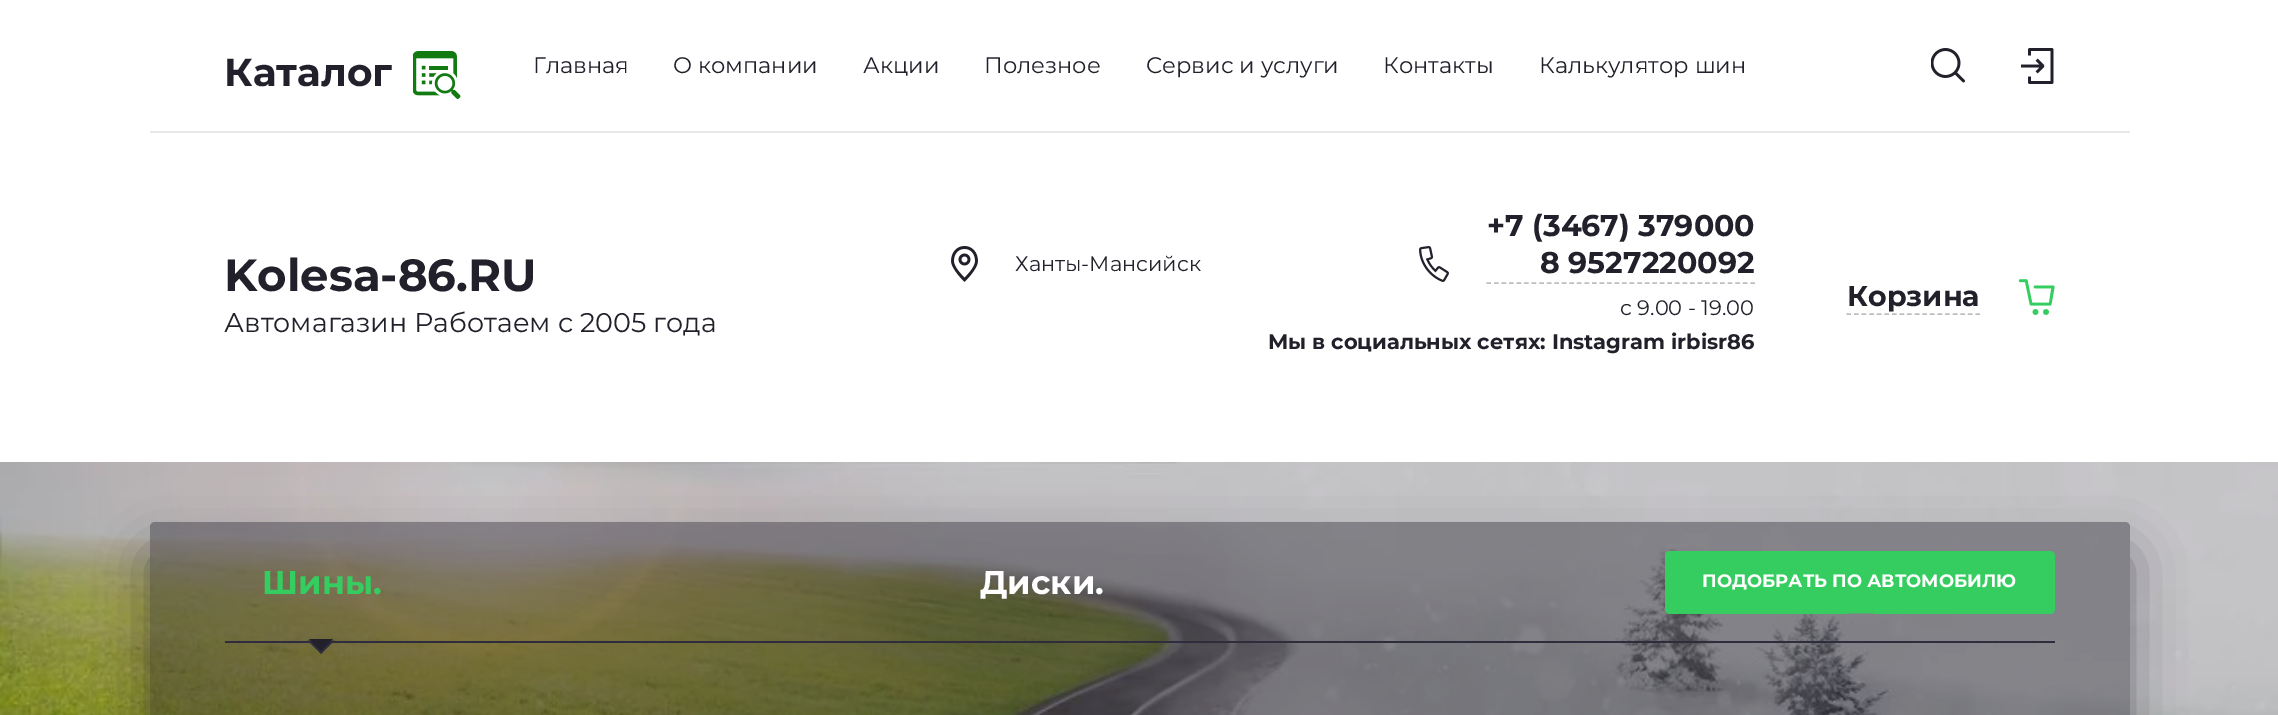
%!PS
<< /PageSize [2278 715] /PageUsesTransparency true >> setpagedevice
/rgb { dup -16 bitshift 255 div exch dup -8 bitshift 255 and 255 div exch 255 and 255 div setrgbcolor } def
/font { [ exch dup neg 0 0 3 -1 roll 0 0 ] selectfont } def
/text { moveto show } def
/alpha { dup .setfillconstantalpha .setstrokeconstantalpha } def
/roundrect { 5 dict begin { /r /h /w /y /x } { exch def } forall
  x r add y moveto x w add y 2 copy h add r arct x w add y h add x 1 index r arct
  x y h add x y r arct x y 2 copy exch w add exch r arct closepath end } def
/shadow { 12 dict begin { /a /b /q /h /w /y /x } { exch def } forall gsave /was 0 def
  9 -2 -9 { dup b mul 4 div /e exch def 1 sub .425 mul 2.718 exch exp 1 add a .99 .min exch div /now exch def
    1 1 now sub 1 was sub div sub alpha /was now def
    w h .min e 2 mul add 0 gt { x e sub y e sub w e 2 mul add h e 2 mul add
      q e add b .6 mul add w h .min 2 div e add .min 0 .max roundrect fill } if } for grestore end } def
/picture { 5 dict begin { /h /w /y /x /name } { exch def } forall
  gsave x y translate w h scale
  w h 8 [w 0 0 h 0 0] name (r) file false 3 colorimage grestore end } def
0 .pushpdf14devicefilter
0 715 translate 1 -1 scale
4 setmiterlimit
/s1 { /Montserrat-Bold 39 font 16#22202A rgb } def
/s2 { /Montserrat-Regular 22.5 font 16#22202A rgb } def
/s3 { /Montserrat-Bold 45 font 16#22202A rgb } def
/s4 { /Montserrat-Regular 27 font 16#22202A rgb } def
/s5 { /Montserrat-Regular 21 font 16#22202A rgb } def
/s6 { /Montserrat-Bold 30 font 16#22202A rgb } def
/s7 { /Montserrat-Bold 21 font 16#22202A rgb } def
/s8 { /Montserrat-Bold 28.5 font 16#22202A rgb } def
/s9 { /Montserrat-Bold 33 font 16#35CD60 rgb } def
/s10 { /Montserrat-Bold 33 font 16#FFFFFF rgb } def
/s11 { /Montserrat-Bold 18 font 16#FFFFFF rgb } def
16#FFFFFF rgb
0 0 2278 715 rectfill
16#E9E9EA rgb
150 131 1980 2 rectfill
s1
(Каталог) 224 86 text
(pic1.raw) 413 51 48 48 picture
s2
(Главная) 533 73 text
(О компании) 673 73 text
(Акции) 863 73 text
(Полезное) 984 73 text
(Сервис и услуги) 1146 73 text
(Контакты) 1383 73 text
(Калькулятор шин) 1539 73 text
(pic2.raw) 1931 48 34 35 picture
(pic3.raw) 2021 48 33 36 picture
s3
(Kolesa-86.RU) 224 291 text
s4
(Автомагазин Работаем с 2005 года) 224 332 text
(pic4.raw) 951 246 27 36 picture
s5
(Ханты-Мансийск) 1015 271 text
(pic5.raw) 1419 246 30 36 picture
16#BDBCBF rgb
1.5 setlinewidth
[4.5 3.04] 0 setdash
1486.5 283 moveto 1755 283 lineto stroke
s6
(+7 \(3467\) 379000) 1487 236 text
(8 9527220092) 1540 273 text
s5
(с 9.00 - 19.00) 1620 315 text
s7
(Мы в социальных сетях: Instagram irbisr86) 1268 349 text
s8
(Корзина) 1847 306 text
16#BDBCBF rgb
[4.5 3.09] 0 setdash
1846.5 314 moveto 1980 314 lineto stroke
(pic6.raw) 2018 279 37 36 picture
(pic7.raw) 0 462 2278 253 picture
gsave
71 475 moveto 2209 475 lineto 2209 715 lineto 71 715 lineto closepath 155 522 moveto 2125 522 lineto 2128 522 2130 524 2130 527 curveto 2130 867 lineto 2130 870 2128 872 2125 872 curveto 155 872 lineto 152 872 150 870 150 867 curveto 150 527 lineto 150 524 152 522 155 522 curveto closepath eoclip newpath
16#22202A rgb
150 554 1980 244 5 26 0.51 shadow
grestore
0.4 alpha
16#22202A rgb
150 522 1980 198 5 roundrect fill
1 alpha
16#2F2C3E rgb
225 641 1830 2 rectfill
s9
(Шины.) 262 594 text
16#2F2C3E rgb
307.5 640.5 moveto 334.5 640.5 lineto 321 654 lineto closepath fill
16#22202A rgb
309 639 moveto 333 639 lineto 321 651 lineto closepath fill
s10
(Диски.) 980 594 text
16#35CD60 rgb
1665 551 390 63 5 roundrect fill
s11
(ПОДОБРАТЬ ПО АВТОМОБИЛЮ) 1702 587 text
16#828187 rgb
1846.5 613.5 moveto 1873.5 613.5 lineto 1860 627 lineto closepath fill
.poppdf14devicefilter showpage
